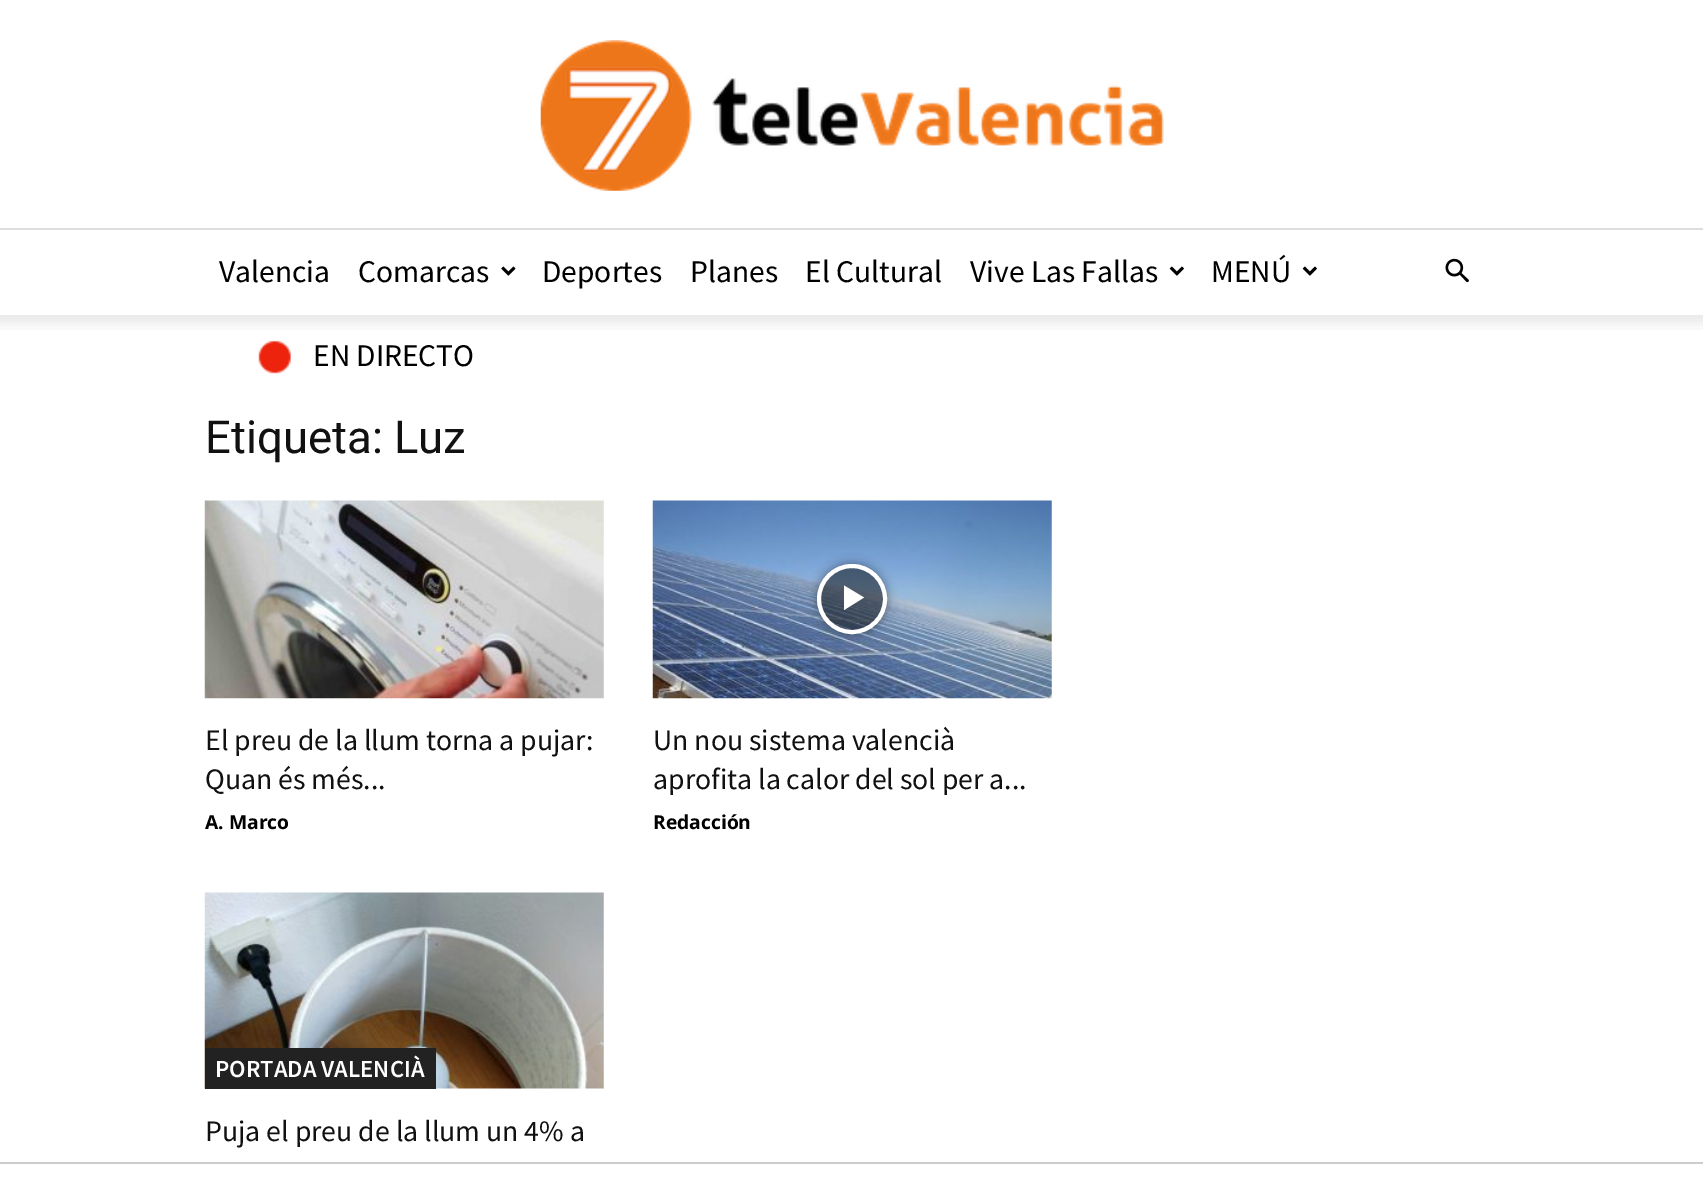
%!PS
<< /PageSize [1703 1180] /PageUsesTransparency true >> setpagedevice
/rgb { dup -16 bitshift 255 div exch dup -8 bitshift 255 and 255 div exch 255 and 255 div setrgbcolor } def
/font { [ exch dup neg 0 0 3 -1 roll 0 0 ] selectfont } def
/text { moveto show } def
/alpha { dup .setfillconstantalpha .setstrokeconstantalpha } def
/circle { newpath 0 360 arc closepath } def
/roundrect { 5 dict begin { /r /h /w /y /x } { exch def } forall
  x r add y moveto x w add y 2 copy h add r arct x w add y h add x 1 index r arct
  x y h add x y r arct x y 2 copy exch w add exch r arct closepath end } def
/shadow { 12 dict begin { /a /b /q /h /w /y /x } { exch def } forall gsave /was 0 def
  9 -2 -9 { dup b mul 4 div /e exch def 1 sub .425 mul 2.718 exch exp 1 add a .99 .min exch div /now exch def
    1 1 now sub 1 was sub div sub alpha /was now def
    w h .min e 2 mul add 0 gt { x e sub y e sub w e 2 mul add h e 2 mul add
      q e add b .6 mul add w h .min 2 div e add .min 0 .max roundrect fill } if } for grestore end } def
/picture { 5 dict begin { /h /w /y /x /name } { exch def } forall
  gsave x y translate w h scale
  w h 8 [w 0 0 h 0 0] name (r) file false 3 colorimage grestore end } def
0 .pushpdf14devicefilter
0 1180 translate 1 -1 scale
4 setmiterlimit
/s1 { /SourceSansPro-Regular 31.5 font 16#000000 rgb } def
/s2 { /Roboto-Regular 45.5 font 16#111111 rgb } def
/s3 { /SourceSansPro-Regular 29.75 font 16#111111 rgb } def
/s4 { /OpenSans-Bold 19.25 font 16#000000 rgb } def
/s5 { /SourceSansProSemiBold-SemiBold 24.5 font 16#FFFFFF rgb } def
16#FFFFFF rgb
0 0 1703 1180 rectfill
(pic1.raw) 540 40 624 151 picture
16#DDDDDD rgb
0 228 1703 2 rectfill
s1
(Valencia) 219 282 text
(Comarcas) 358 282 text
(pic2.raw) 501 266 15 10 picture
(Deportes) 542 282 text
(Planes) 690 282 text
(El Cultural) 805 282 text
(Vive Las Fallas) 970 282 text
(pic3.raw) 1169 266 15 10 picture
(MENÚ) 1211 282 text
(pic3.raw) 1302 266 15 10 picture
(pic4.raw) 258 340 33 34 picture
(EN DIRECTO) 313 366 text
(pic5.raw) 1445 258 24 25 picture
(pic6.raw) 0 315 1703 15 picture
s2
(Etiqueta: Luz) 205 453 text
(pic7.raw) 204 500 400 199 picture
s3
(El preu de la llum torna a pujar:) 205 750 text
(Quan és més...) 205 789 text
s4
(A. Marco) 205 829 text
(pic8.raw) 652 500 400 199 picture
gsave
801 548 moveto 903 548 lineto 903 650 lineto 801 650 lineto closepath 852 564 moveto 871.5 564 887 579.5 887 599 curveto 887 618.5 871.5 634 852 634 curveto 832.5 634 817 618.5 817 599 curveto 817 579.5 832.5 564 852 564 curveto closepath eoclip newpath
817 564 70 70 35 5 0.4 shadow
grestore
0.48 alpha
852 599 33 circle fill
1 alpha
16#FFFFFF rgb
4 setlinewidth
852 599 33 circle stroke
844 585.5 moveto 844 610 lineto 864 597.5 lineto closepath fill
s3
(Un nou sistema valencià) 653 750 text
(aprofita la calor del sol per a...) 653 789 text
s4
(Redacción) 653 829 text
(pic9.raw) 204 892 400 197 picture
16#222222 rgb
205 1048 231 41 rectfill
s5
(PORTADA VALENCIÀ) 215 1077 text
s3
(Puja el preu de la llum un 4% a) 205 1141 text
16#CCCCCC rgb
0 1162 1703 2 rectfill
.poppdf14devicefilter showpage
